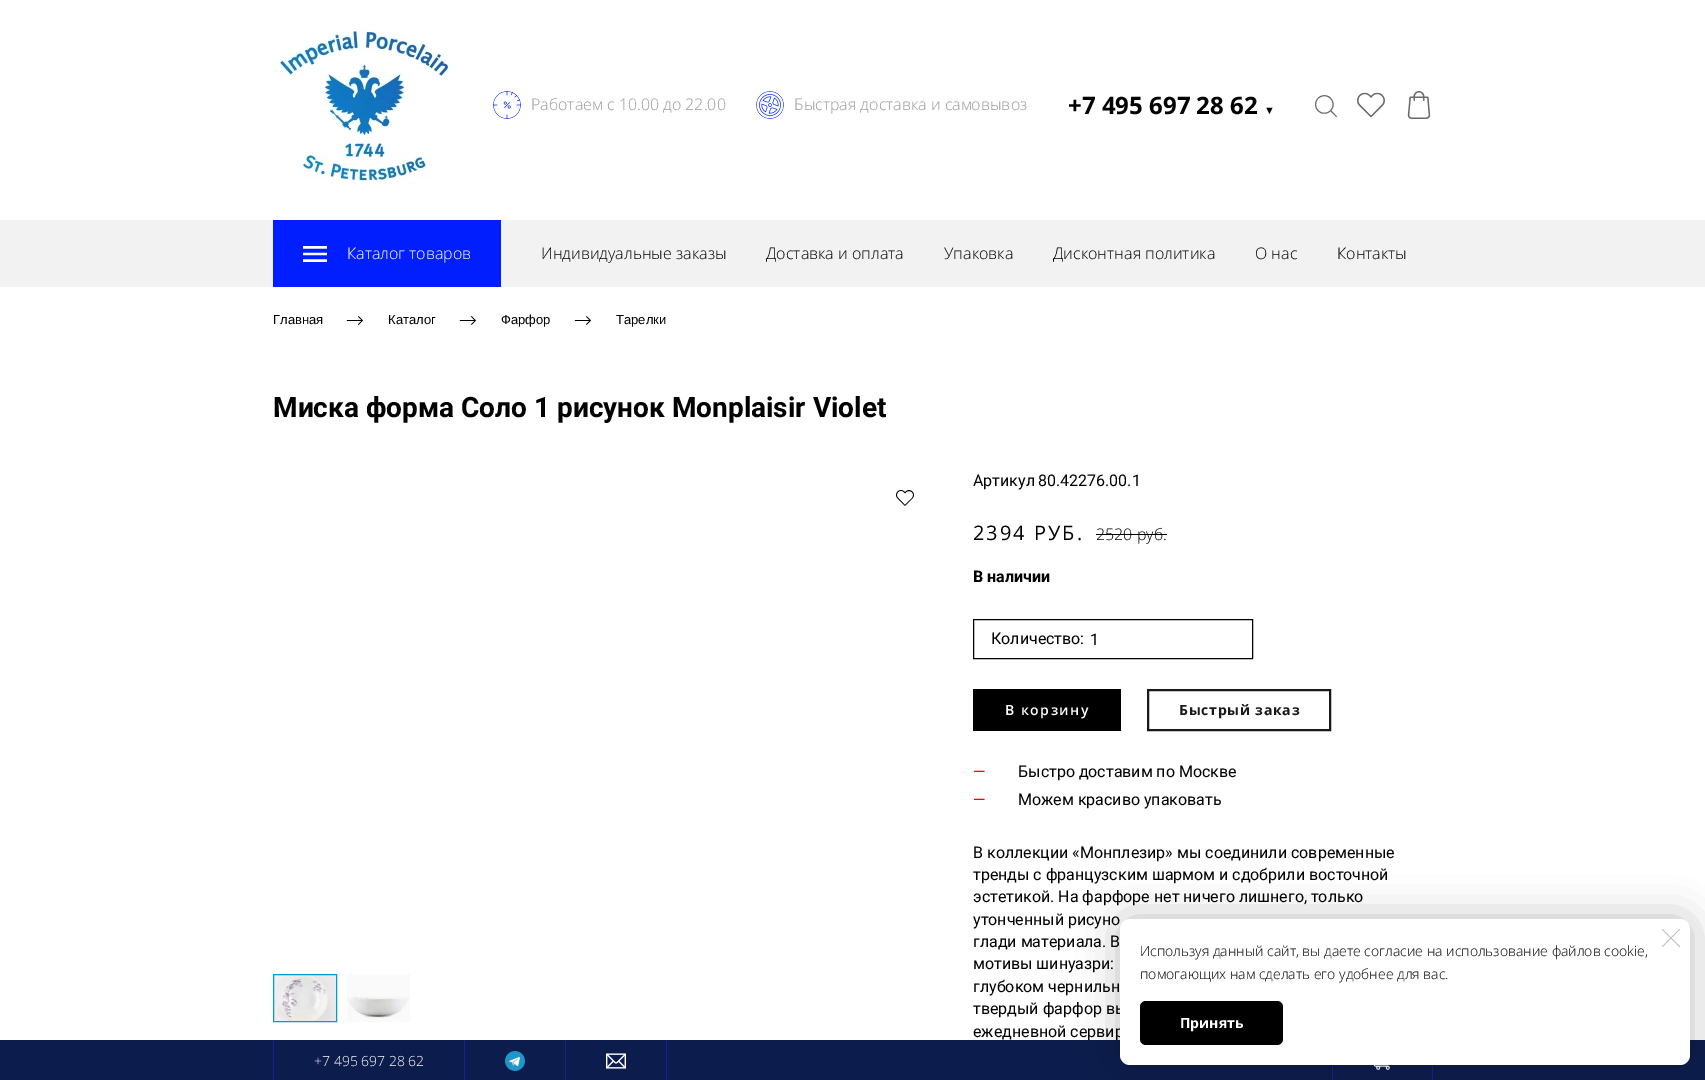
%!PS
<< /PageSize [1705 1080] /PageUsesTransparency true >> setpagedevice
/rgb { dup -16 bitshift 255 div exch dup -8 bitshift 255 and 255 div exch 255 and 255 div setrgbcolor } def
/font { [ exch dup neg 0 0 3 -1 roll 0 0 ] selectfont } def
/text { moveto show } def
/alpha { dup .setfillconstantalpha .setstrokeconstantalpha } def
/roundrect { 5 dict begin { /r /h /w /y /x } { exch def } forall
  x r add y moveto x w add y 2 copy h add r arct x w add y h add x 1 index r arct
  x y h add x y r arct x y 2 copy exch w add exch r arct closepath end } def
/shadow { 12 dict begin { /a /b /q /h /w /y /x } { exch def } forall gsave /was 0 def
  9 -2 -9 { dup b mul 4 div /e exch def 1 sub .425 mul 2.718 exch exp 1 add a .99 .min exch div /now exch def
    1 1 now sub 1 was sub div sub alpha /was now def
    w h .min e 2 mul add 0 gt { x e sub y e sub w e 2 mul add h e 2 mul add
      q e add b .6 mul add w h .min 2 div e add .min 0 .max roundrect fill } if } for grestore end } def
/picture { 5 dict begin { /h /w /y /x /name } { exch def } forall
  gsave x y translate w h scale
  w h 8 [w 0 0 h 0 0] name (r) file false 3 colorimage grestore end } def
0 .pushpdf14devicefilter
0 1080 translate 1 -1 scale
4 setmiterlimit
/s1 { /OpenSans-Light 16 font 16#999999 rgb } def
/s2 { /OpenSans-Bold 24 font 16#000000 rgb } def
/s3 { /LiberationSans-Bold 11 font 16#000000 rgb } def
/s4 { /OpenSans-Light 16 font 16#FFFFFF rgb } def
/s5 { /OpenSans-Light 16 font 16#000000 rgb } def
/s6 { /LiberationSans-Regular 13 font 16#000000 rgb } def
/s7 { /Roboto-Bold 28 font 16#000000 rgb } def
/s8 { /Roboto-Regular 16 font 16#000000 rgb } def
/s9 { /Roboto-Bold 16 font 16#000000 rgb } def
/s10 { /Roboto-Regular 16 font 16#FF0000 rgb } def
/s11 { /OpenSans-Light 14 font 16#000000 rgb } def
/s12 { /OpenSans-Bold 14 font 16#FFFFFF rgb } def
/s13 { /OpenSans-Light 14 font 16#FFFFFF rgb } def
16#FFFFFF rgb
0 0 1705 1080 rectfill
(pic1.raw) 277 28 173 153 picture
(pic2.raw) 493 91 28 28 picture
s1
(Работаем с 10.00 до 22.00) 531 110 text
(pic3.raw) 756 91 28 28 picture
(Быстрая доставка и самовывоз) 794 110 text
s2
(+7 495 697 28 62) 1068 114 text
s3
(▼) 1264 114 text
(pic4.raw) 1315 95 22 22 picture
(pic5.raw) 1357 92 28 26 picture
(pic6.raw) 1407 91 24 28 picture
16#F2F2F2 rgb
0 220 1705 67 rectfill
16#001EFF rgb
273 220 228 67 rectfill
(pic7.raw) 303 246 24 16 picture
s4
(Каталог товаров) 347 259 text
s5
(Индивидуальные заказы) 541 259 text
(Доставка и оплата) 766 259 text
(Упаковка) 944 259 text
(Дисконтная политика) 1053 259 text
(О нас) 1255 259 text
(Контакты) 1337 259 text
s6
(Главная) 273 324 text
(pic8.raw) 346 316 17 9 picture
(Каталог) 388 324 text
(pic8.raw) 459 316 17 9 picture
(Фарфор) 501 324 text
(pic8.raw) 574 316 17 9 picture
(Тарелки) 616 324 text
s7
(Миска форма Соло 1 рисунок Monplaisir Violet) 273 417 text
(pic9.raw) 896 490 18 16 picture
(pic10.raw) 274 975 62 46 picture
16#009CCE rgb
273.5 974.5 63 47 rectstroke
(pic11.raw) 347 974 63 48 picture
s8
(Артикул) 973 486 text
(80.42276.00.1) 1038 486 text
/OpenSans-Regular 20 font
973 540 moveto 2 0 (2394 РУБ.) ashow
s5
(2520 руб.) 1096 540 text
1096 534 71 1 rectfill
s9
(В наличии) 973 582 text
973.5 619.5 279 39 rectstroke
s8
(Количество:) 991 644 text
(1) 1090 645 text
973 689 148 42 rectfill
/OpenSans-SemiBold 14 font
16#FFFFFF rgb
1005 715 moveto 1.5 0 (В корзину) ashow
16#1A1A1A rgb
2 setlinewidth
1148 690 182 40 rectstroke
/OpenSans-Bold 14 font
1179 715 moveto 0.75 0 (Быстрый заказ) ashow
s10
(—) 973 777 text
s8
(Быстро доставим по Москве) 1018 777 text
s10
(—) 973 805 text
s8
(Можем красиво упаковать) 1018 805 text
(В коллекции «Монплезир» мы соединили современные) 973 858 text
(тренды с французским шармом и сдобрили восточной) 973 880 text
(эстетикой. На фарфоре нет ничего лишнего, только) 973 902 text
(утонченный рисуно) 973 925 text
(глади материала. В) 973 947 text
(мотивы шинуазри:) 973 969 text
(глубоком чернильн) 973 992 text
(твердый фарфор вы) 973 1014 text
(ежедневной сервир) 973 1037 text
16#0C1D4D rgb
0 1040 1705 40 rectfill
16#241996 rgb
1432 1065 1 15 rectfill
1332 1065 1 15 rectfill
(pic15.raw) 1373 1065 17 5 picture
16#000000 rgb
1120 919 570 146 10 20 0.25 shadow
16#FFFFFF rgb
1120 919 570 146 10 roundrect fill
(pic12.raw) 1662 929 18 18 picture
s11
(Используя данный сайт, вы даете согласие на использование файлов cookie,) 1140 956 text
(помогающих нам сделать его удобнее для вас.) 1140 979 text
1140 1001 143 44 6 roundrect fill
s12
(Принять) 1180 1028 text
16#241996 rgb
464 1040 1 40 rectfill
273 1040 1 40 rectfill
s13
(+7 495 697 28 62) 314 1066 text
16#241996 rgb
565 1040 1 40 rectfill
(pic13.raw) 505 1051 20 20 picture
666 1040 1 40 rectfill
(pic14.raw) 606 1053 20 16 picture
.poppdf14devicefilter showpage
